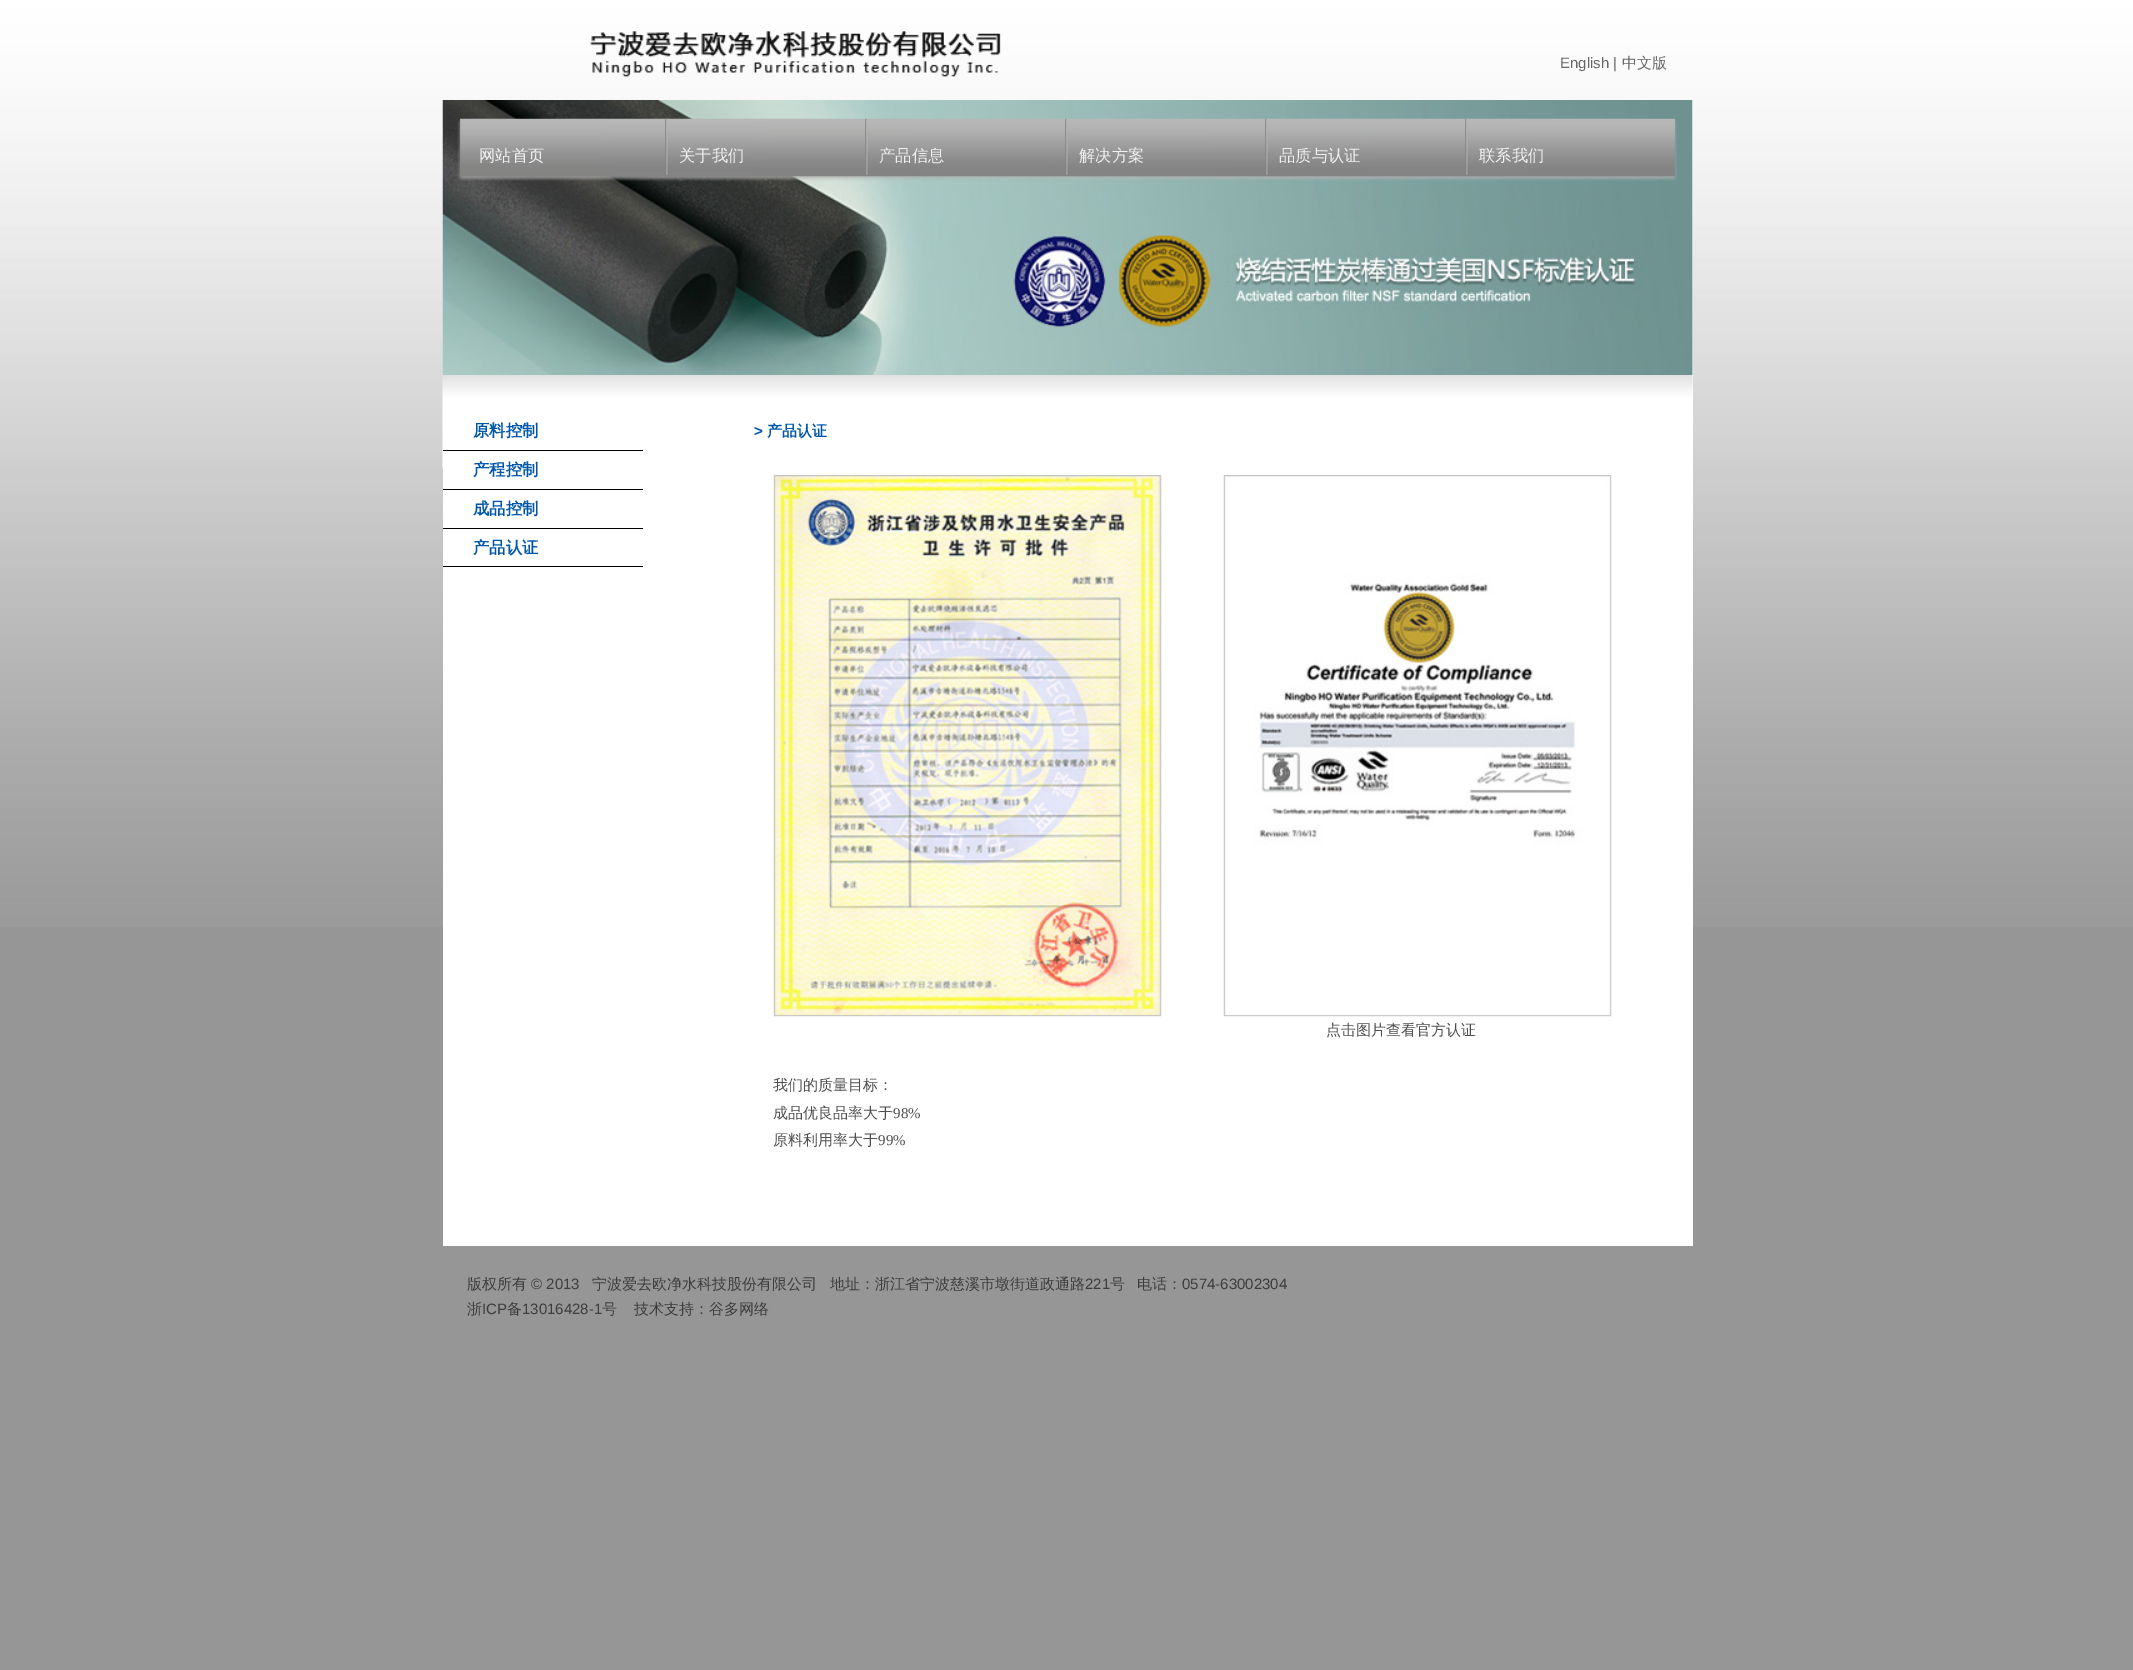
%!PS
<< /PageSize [2133 1670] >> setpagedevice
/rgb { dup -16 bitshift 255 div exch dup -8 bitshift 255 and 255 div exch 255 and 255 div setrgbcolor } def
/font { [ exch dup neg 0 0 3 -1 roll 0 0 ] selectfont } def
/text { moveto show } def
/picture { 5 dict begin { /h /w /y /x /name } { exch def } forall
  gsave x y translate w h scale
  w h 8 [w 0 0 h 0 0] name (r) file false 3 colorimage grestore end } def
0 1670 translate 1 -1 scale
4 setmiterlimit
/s1 { /LiberationSans-Regular 15 font 16#666666 rgb } def
/s2 { /WenQuanYiZenHei-Medium 15 font 16#666666 rgb } def
/s3 { /WenQuanYiZenHei-Medium 16.25 font 16#F1F1F1 rgb } def
/s4 { /WenQuanYiZenHei-Bold 16.25 font 16#0057A9 rgb } def
/s5 { /LiberationSans-Bold 15 font 16#0057A9 rgb } def
/s6 { /WenQuanYiZenHei-Bold 15 font 16#0057A9 rgb } def
/s7 { /WenQuanYiZenHei-Medium 15 font 16#4D4D4D rgb } def
/s8 { /LiberationSerif-Regular 15 font 16#4D4D4D rgb } def
/s9 { /WenQuanYiZenHei-Medium 15 font 16#3D3D3D rgb } def
/s10 { /LiberationSans-Regular 15 font 16#3D3D3D rgb } def
16#969696 rgb
0 0 2133 1670 rectfill
(pic1.raw) 0 0 2133 927 picture
(pic2.raw) 590 31 411 46 picture
s1
(English |) 1560 68 text
s2
(中文版) 1622 68 text
(pic3.raw) 442 100 1251 275 picture
(pic4.raw) 457 118 1220 63 picture
(pic5.raw) 665 118 3 57 picture
s3
(网站首页) 479 161 text
(pic6.raw) 865 118 3 57 picture
(关于我们) 679 161 text
(pic7.raw) 1065 118 3 57 picture
(产品信息) 879 161 text
(pic8.raw) 1265 118 3 57 picture
(解决方案) 1079 161 text
(pic9.raw) 1465 118 3 57 picture
(品质与认证) 1279 161 text
(联系我们) 1479 161 text
16#FFFFFF rgb
443 375 1250 871 rectfill
(pic10.raw) 442 375 1251 94 picture
16#000000 rgb
443 450 200 1 rectfill
s4
(原料控制) 473 436 text
16#000000 rgb
443 489 200 1 rectfill
s4
(产程控制) 473 475 text
16#000000 rgb
443 528 200 1 rectfill
s4
(成品控制) 473 514 text
16#000000 rgb
443 566 200 1 rectfill
s4
(产品认证) 473 553 text
s5
(>) 754 436 text
s6
(产品认证) 767 436 text
(pic11.raw) 773 475 389 542 picture
(pic12.raw) 1223 475 389 542 picture
s7
(点击图片查看官方认证) 1326 1035 text
(我们的质量目标：) 773 1090 text
(成品优良品率大于) 773 1118 text
s8
(98%) 893 1118 text
s7
(原料利用率大于) 773 1145 text
s8
(99%) 878 1145 text
s9
(版权所有) 467 1289 text
s10
(© 2013) 531 1289 text
s9
(宁波爱去欧净水科技股份有限公司) 592 1289 text
(地址：浙江省宁波慈溪市墩街道政通路) 830 1289 text
s10
(221) 1085 1289 text
s9
(号) 1110 1289 text
(电话：) 1137 1289 text
s10
(0574-63002304) 1182 1289 text
s9
(浙) 467 1314 text
s10
(ICP) 482 1314 text
s9
(备) 507 1314 text
s10
(13016428-1) 522 1314 text
s9
(号) 602 1314 text
(技术支持：谷多网络) 634 1314 text
showpage
